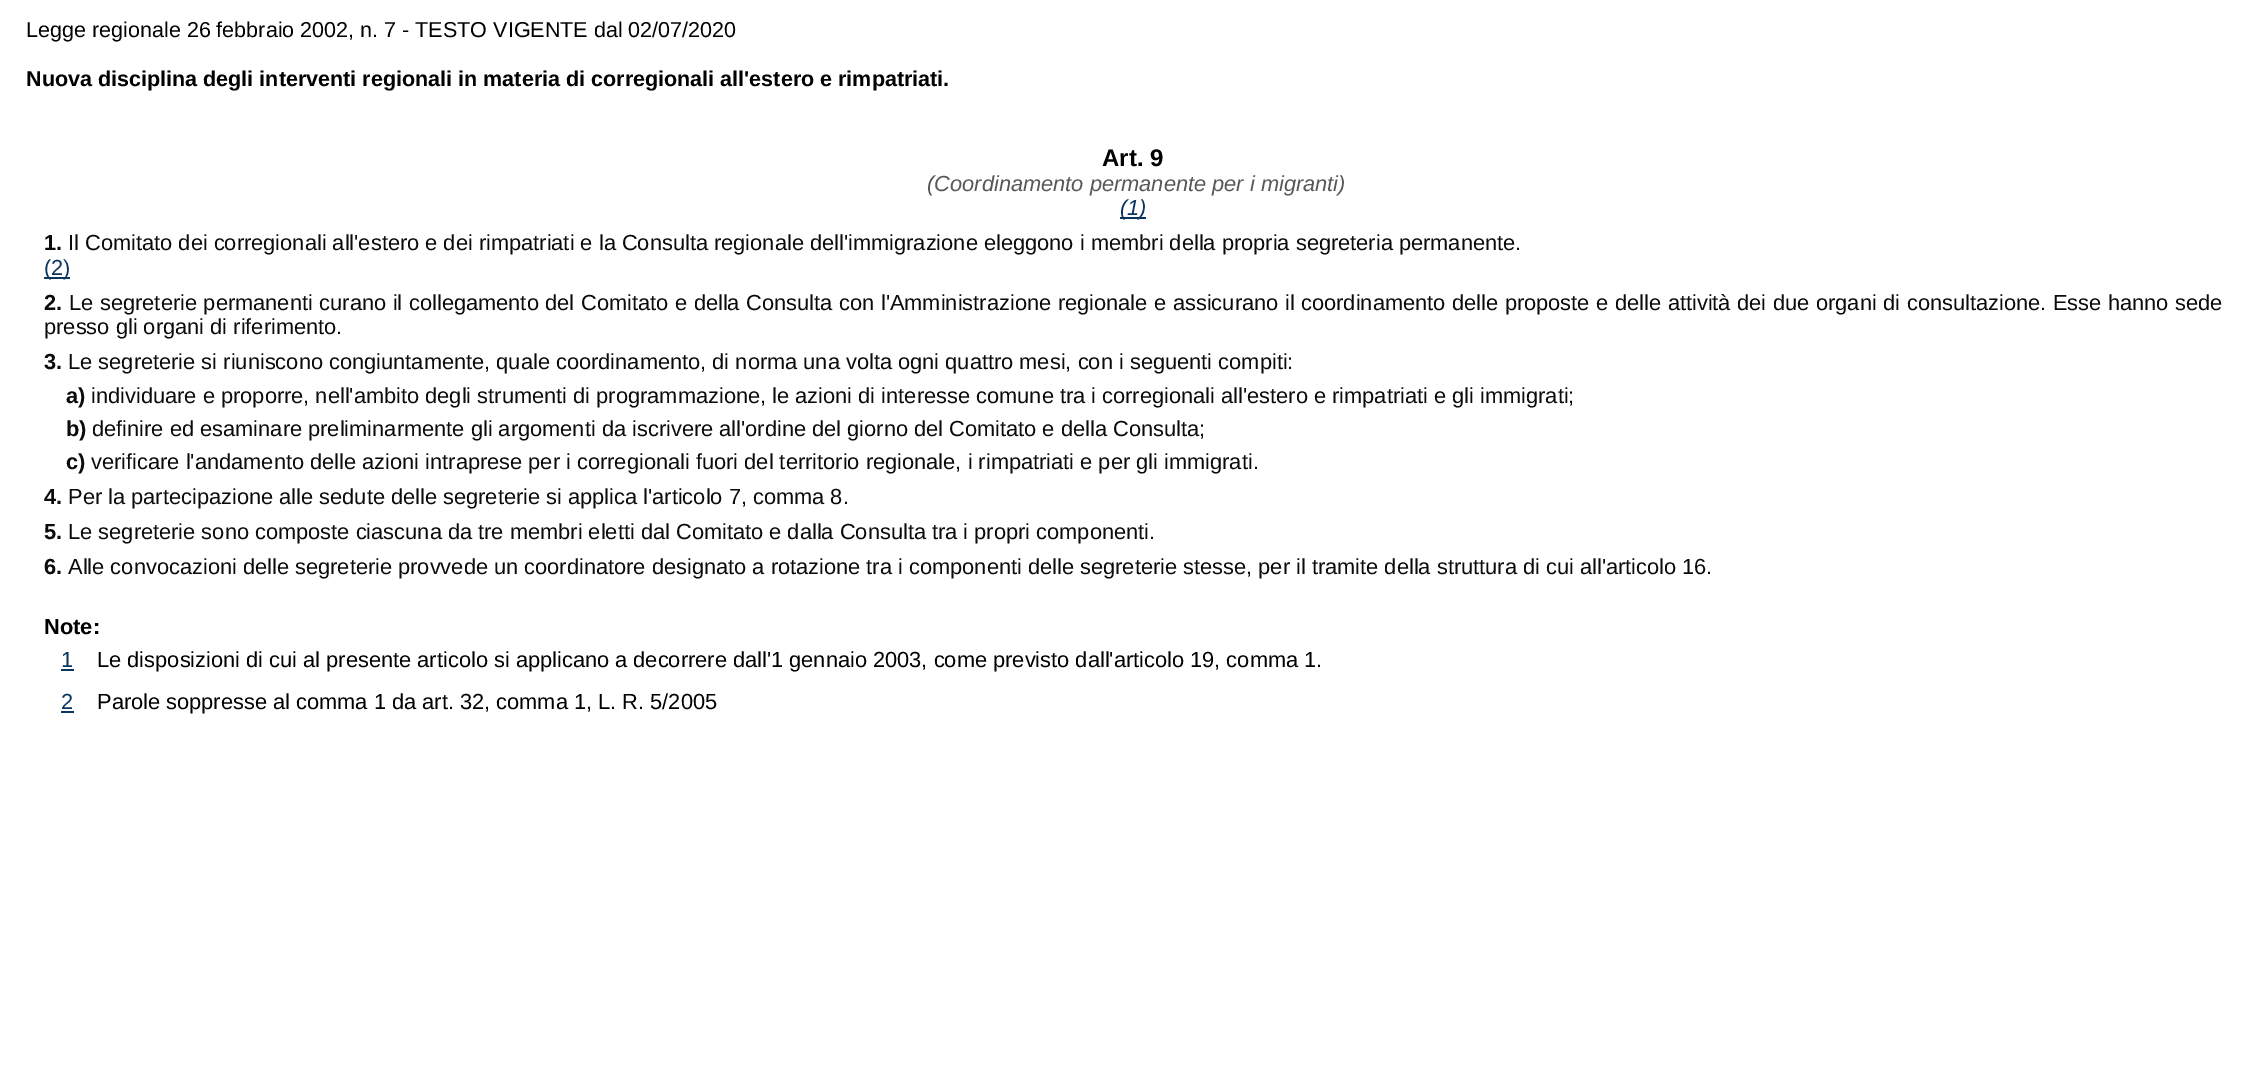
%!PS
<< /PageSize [2265 1078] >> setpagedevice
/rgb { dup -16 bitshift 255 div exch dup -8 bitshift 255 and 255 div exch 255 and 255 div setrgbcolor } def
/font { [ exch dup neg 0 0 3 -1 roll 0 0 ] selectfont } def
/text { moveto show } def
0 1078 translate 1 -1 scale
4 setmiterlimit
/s1 { /LiberationSans-Regular 21.55 font 16#000000 rgb } def
/s2 { /LiberationSans-Bold 21.55 font 16#000000 rgb } def
/s3 { /LiberationSans-Bold 24 font 16#000000 rgb } def
/s4 { /LiberationSans-Italic 21.83 font 16#595757 rgb } def
/s5 { /LiberationSans-Italic 21.83 font 16#0A3560 rgb } def
/s6 { /LiberationSans-Bold 21.83 font 16#0B0B0B rgb } def
/s7 { /LiberationSans-Regular 21.83 font 16#0B0B0B rgb } def
/s8 { /LiberationSans-Regular 21.83 font 16#0A3560 rgb } def
/s9 { /LiberationSans-Bold 21.83 font 16#000000 rgb } def
/s10 { /LiberationSans-Regular 21.83 font 16#000000 rgb } def
16#FFFFFF rgb
0 0 2265 1078 rectfill
s1
(Legge regionale 26 febbraio 2002, n. 7 - TESTO VIGENTE dal 02/07/2020) 26 37 text
s2
(Nuova disciplina degli interventi regionali in materia di corregionali all'estero e rimpatriati.) 26 86 text
s3
(Art. 9) 1102 166 text
s4
(\(Coordinamento permanente per i migranti\)) 927 191 text
16#0A3560 rgb
1120 217 26 2 rectfill
(\(1\)) 1120 215 text
s6
(1.) 44 250 text
s7
(Il Comitato dei corregionali all'estero e dei rimpatriati e la Consulta regionale dell'immigrazione eleggono i membri della propria segreteria permanente.) 68 250 text
16#0A3560 rgb
44 277 26 2 rectfill
(\(2\)) 44 275 text
s6
(2.) 44 310 text
/LiberationSans-Regular 21.83 font
69 310 moveto 0.5 0 32 (Le segreterie permanenti curano il collegamento del Comitato e della Consulta con l'Amministrazione regionale e assicurano il coordinamento delle proposte e delle attività dei due organi di consultazione. Esse hanno sede) widthshow
(presso gli organi di riferimento.) 44 334 text
s6
(3.) 44 369 text
s7
(Le segreterie si riuniscono congiuntamente, quale coordinamento, di norma una volta ogni quattro mesi, con i seguenti compiti:) 68 369 text
s6
(a\)) 66 403 text
s7
(individuare e proporre, nell'ambito degli strumenti di programmazione, le azioni di interesse comune tra i corregionali all'estero e rimpatriati e gli immigrati;) 91 403 text
s6
(b\)) 66 436 text
s7
(definire ed esaminare preliminarmente gli argomenti da iscrivere all'ordine del giorno del Comitato e della Consulta;) 92 436 text
s6
(c\)) 66 469 text
s7
(verificare l'andamento delle azioni intraprese per i corregionali fuori del territorio regionale, i rimpatriati e per gli immigrati.) 91 469 text
s6
(4.) 44 504 text
s7
(Per la partecipazione alle sedute delle segreterie si applica l'articolo 7, comma 8.) 68 504 text
s6
(5.) 44 539 text
s7
(Le segreterie sono composte ciascuna da tre membri eletti dal Comitato e dalla Consulta tra i propri componenti.) 68 539 text
s6
(6.) 44 574 text
s7
(Alle convocazioni delle segreterie provvede un coordinatore designato a rotazione tra i componenti delle segreterie stesse, per il tramite della struttura di cui all'articolo 16.) 68 574 text
s9
(Note:) 44 634 text
s8
(1) 61 667 text
61 669 13 2 rectfill
s10
(Le disposizioni di cui al presente articolo si applicano a decorrere dall'1 gennaio 2003, come previsto dall'articolo 19, comma 1.) 97 667 text
s8
(2) 61 709 text
61 711 13 2 rectfill
s10
(Parole soppresse al comma 1 da art. 32, comma 1, L. R. 5/2005) 97 709 text
showpage
